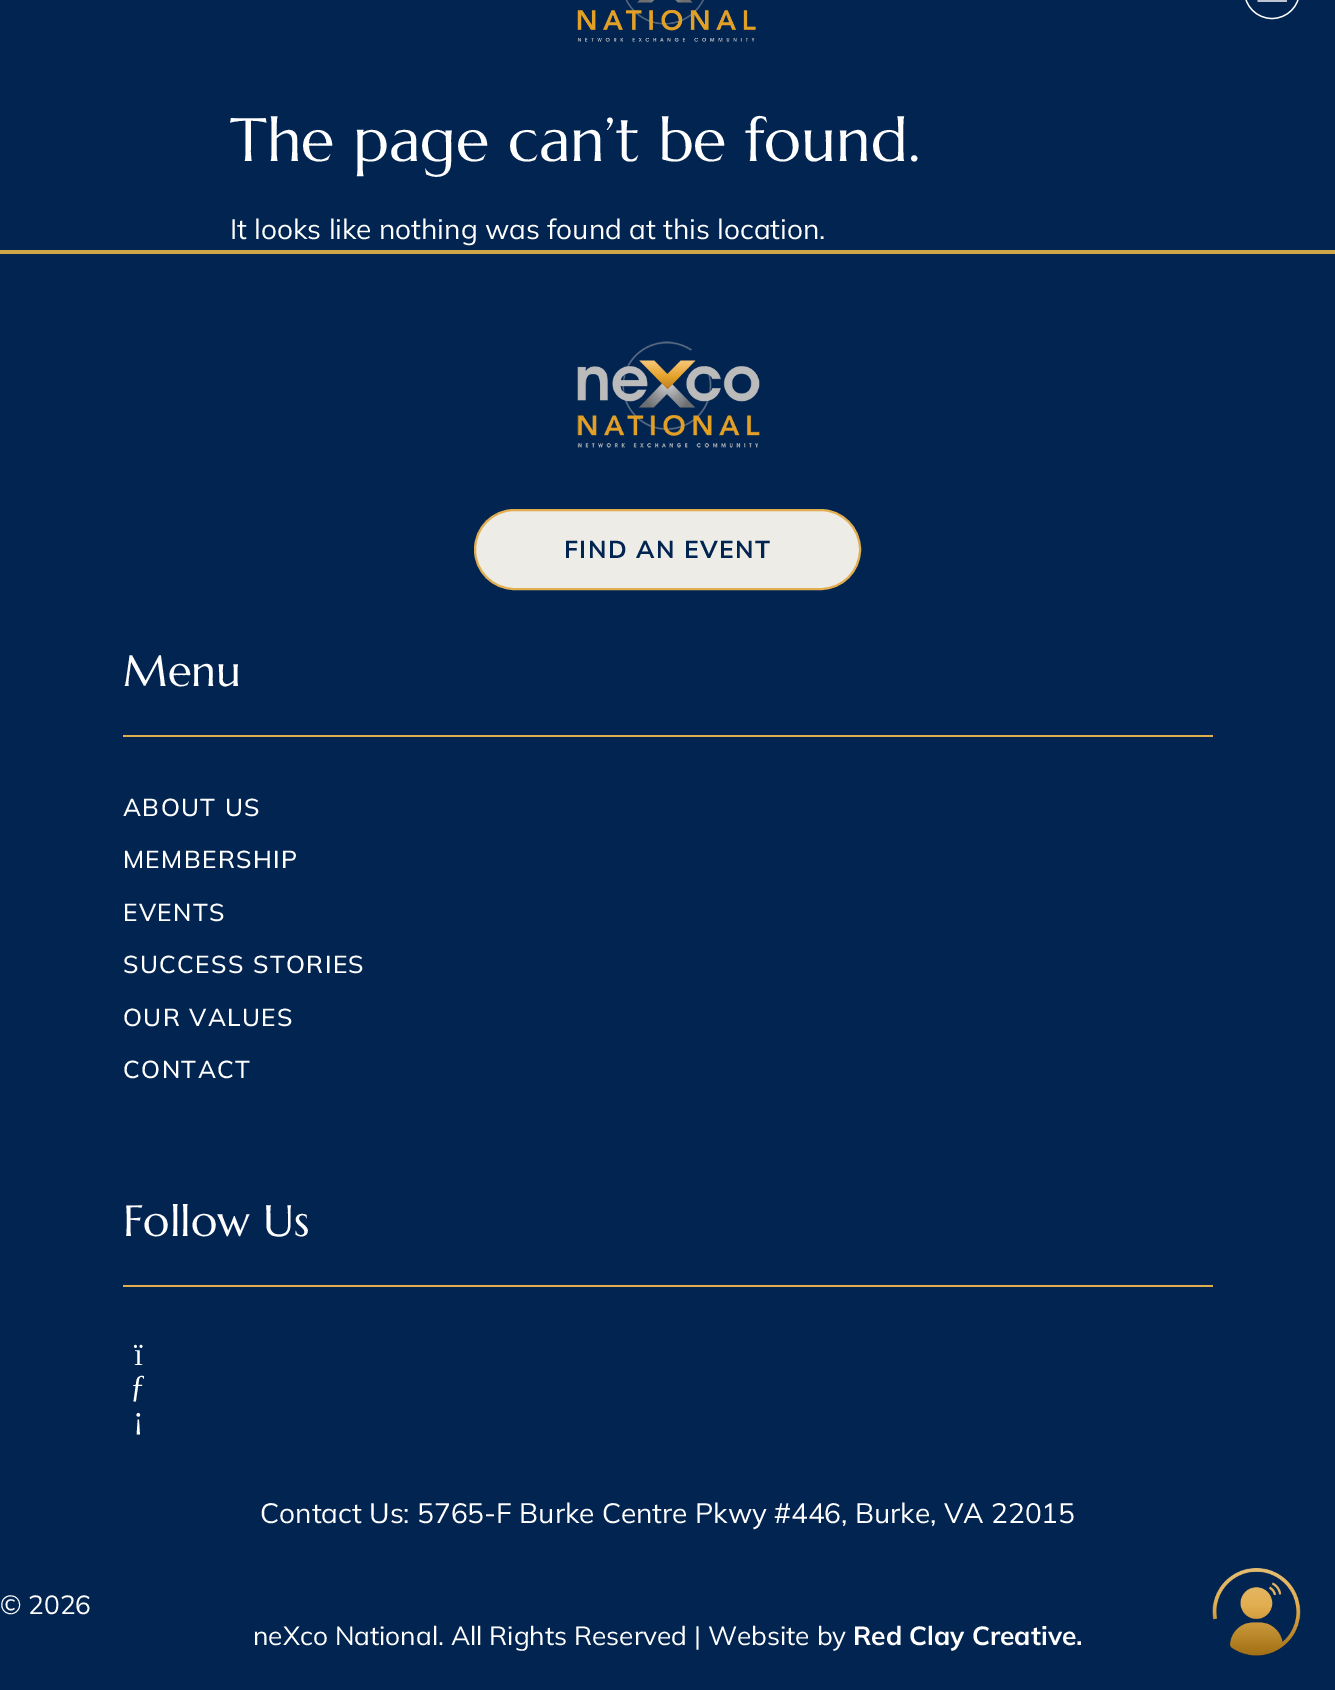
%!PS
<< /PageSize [1335 1690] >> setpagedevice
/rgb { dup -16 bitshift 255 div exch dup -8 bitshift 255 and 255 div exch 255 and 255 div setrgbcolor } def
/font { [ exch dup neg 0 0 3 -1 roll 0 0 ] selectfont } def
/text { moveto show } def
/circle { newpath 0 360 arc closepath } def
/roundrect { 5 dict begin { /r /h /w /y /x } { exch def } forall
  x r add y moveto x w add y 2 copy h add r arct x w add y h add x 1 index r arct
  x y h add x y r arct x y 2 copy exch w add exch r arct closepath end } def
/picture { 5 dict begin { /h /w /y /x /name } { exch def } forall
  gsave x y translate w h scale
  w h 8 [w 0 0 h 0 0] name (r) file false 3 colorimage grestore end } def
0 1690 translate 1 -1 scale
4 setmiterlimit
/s1 { /Marcellus-Regular 61.25 font 16#FFFFFF rgb } def
/s2 { /Mulish-Regular 28 font 16#FFFFFF rgb } def
/s3 { /Marcellus-Regular 43.75 font 16#FFFFFF rgb } def
/s4 { /LiberationSerif-Regular 32 font 16#FFFFFF rgb } def
/s5 { /Mulish-Regular 26.25 font 16#FFFFFF rgb } def
/s6 { /Mulish-Bold 26.25 font 16#FFFFFF rgb } def
16#022450 rgb
0 0 1335 1690 rectfill
(pic1.raw) 577 0 179 42 picture
16#FFFFFF rgb
1.2 setlinewidth
1272 -9 27.5 circle stroke
1257.5 1 moveto 1287 1 lineto stroke
s1
(The page can’t be found.) 230 161 text
s2
(It looks like nothing was found at this location.) 230 239 text
16#CFA749 rgb
0 250 1335 4 rectfill
(pic2.raw) 577 341 183 107 picture
16#EDECE7 rgb
475 510 385 79 39.5 roundrect gsave fill grestore
16#E2AE50 rgb
2 setlinewidth
stroke
/Mulish-Bold 24.5 font
16#022450 rgb
564 558 moveto 1.4 0 (FIND AN EVENT) ashow
s3
(Menu) 123 686 text
16#E2AE50 rgb
123 735 1090 2 rectfill
/Mulish-Medium 24.5 font
16#FFFFFF rgb
123 816 moveto 1.4 0 (ABOUT US) ashow
123 868 moveto 1.4 0 (MEMBERSHIP) ashow
123 921 moveto 1.4 0 (EVENTS) ashow
123 973 moveto 1.4 0 (SUCCESS STORIES) ashow
123 1026 moveto 1.4 0 (OUR VALUES) ashow
123 1078 moveto 1.4 0 (CONTACT) ashow
s3
(Follow Us) 123 1236 text
16#E2AE50 rgb
123 1285 1090 2 rectfill
s4
(ï) 134 1365 text
(ƒ) 130 1397 text
(¡) 133 1428 text
s2
(Contact Us: 5765-F Burke Centre Pkwy #446, Burke, VA 22015) 260 1523 text
s5
(© 2026) 0 1614 text
(neXco National. All Rights Reserved | Website by) 253 1645 text
s6
(Red Clay Creative.) 853 1645 text
(pic3.raw) 1212 1568 89 88 picture
showpage
